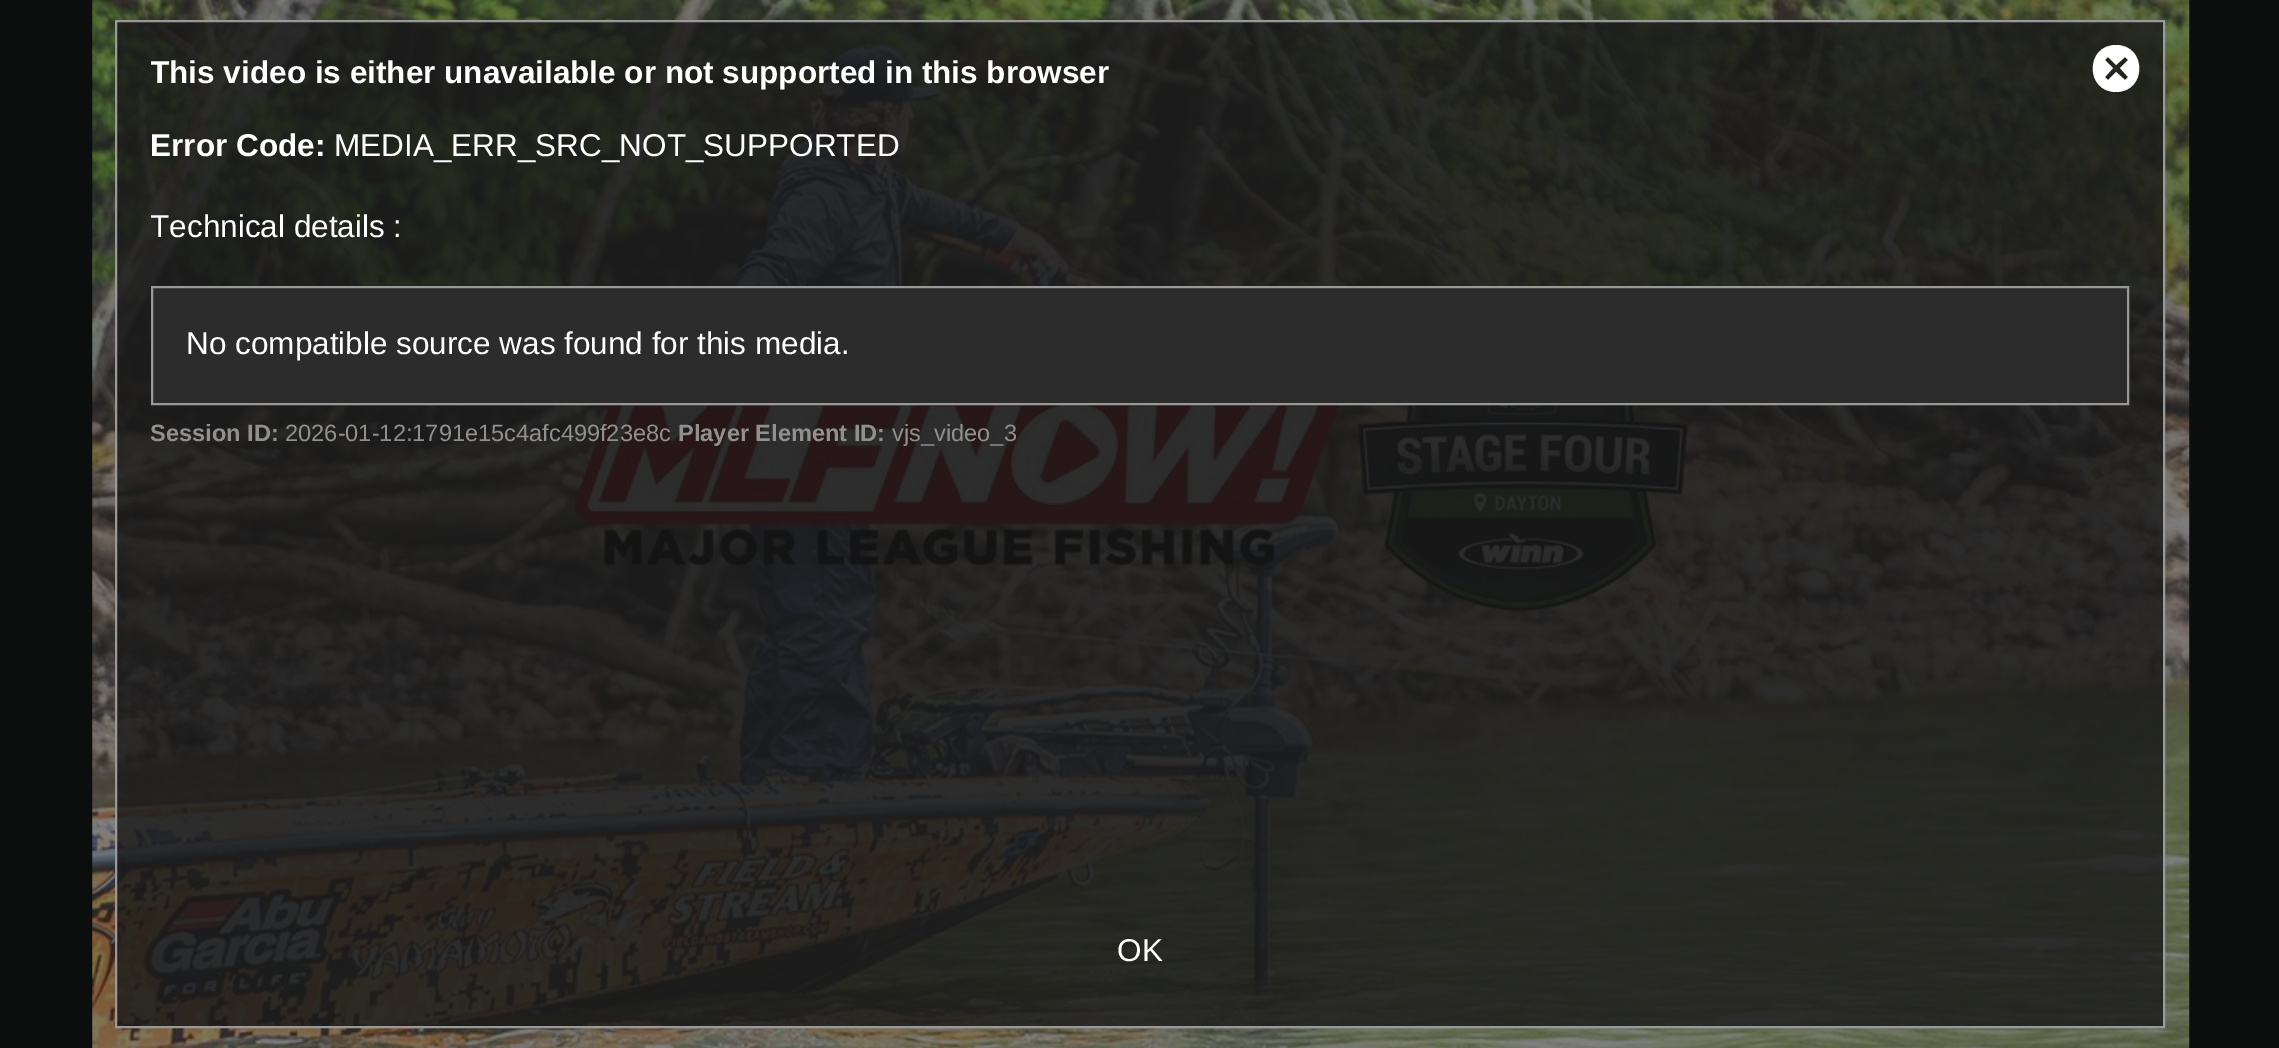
%!PS
<< /PageSize [2279 1048] >> setpagedevice
/rgb { dup -16 bitshift 255 div exch dup -8 bitshift 255 and 255 div exch 255 and 255 div setrgbcolor } def
/font { [ exch dup neg 0 0 3 -1 roll 0 0 ] selectfont } def
/text { moveto show } def
/picture { 5 dict begin { /h /w /y /x /name } { exch def } forall
  gsave x y translate w h scale
  w h 8 [w 0 0 h 0 0] name (r) file false 3 colorimage grestore end } def
0 1048 translate 1 -1 scale
4 setmiterlimit
/s1 { /LiberationSans-Bold 31.5 font 16#FFFFFF rgb } def
/s2 { /LiberationSans-Regular 31.5 font 16#FFFFFF rgb } def
/s3 { /LiberationSans-Bold 23.6 font 16#90908F rgb } def
/s4 { /LiberationSans-Regular 23.6 font 16#90908F rgb } def
16#0B0E0C rgb
0 0 2279 1048 rectfill
(pic1.raw) 92 0 2098 1048 picture
16#999999 rgb
2 setlinewidth
116 21 2048 1006 rectstroke
gsave
151 23 1978 866 rectclip
s1
(This video is either unavailable or not supported in this browser) 150 83 text
grestore
s1
(Error Code:) 150 156 text
s2
(MEDIA_ERR_SRC_NOT_SUPPORTED) 334 156 text
gsave
151 23 1978 866 rectclip
(Technical details) 150 237 text
grestore
(:) 393 237 text
16#2C2C2C rgb
152 287 moveto 2128 287 lineto 2128 404 lineto 152 404 lineto closepath gsave fill grestore
16#999999 rgb
stroke
s2
(No compatible source was found for this media.) 186 354 text
s3
(Session ID:) 150 441 text
s4
(2026-01-12:1791e15c4afc499f23e8c) 285 441 text
s3
(Player Element ID:) 678 441 text
s4
(vjs_video_3) 892 441 text
16#FFFFFF rgb
2116 45 moveto 2085 45 2085 92 2116 92 curveto 2147 92 2147 45 2116 45 curveto closepath 2128 77 moveto 2125 80 lineto 2116 72 lineto 2108 80 lineto 2105 77 lineto 2113 68 lineto 2105 60 lineto 2108 57 lineto 2116 65 lineto 2125 57 lineto 2128 60 lineto 2120 68 lineto closepath fill
s2
(OK) 1117 961 text
showpage
